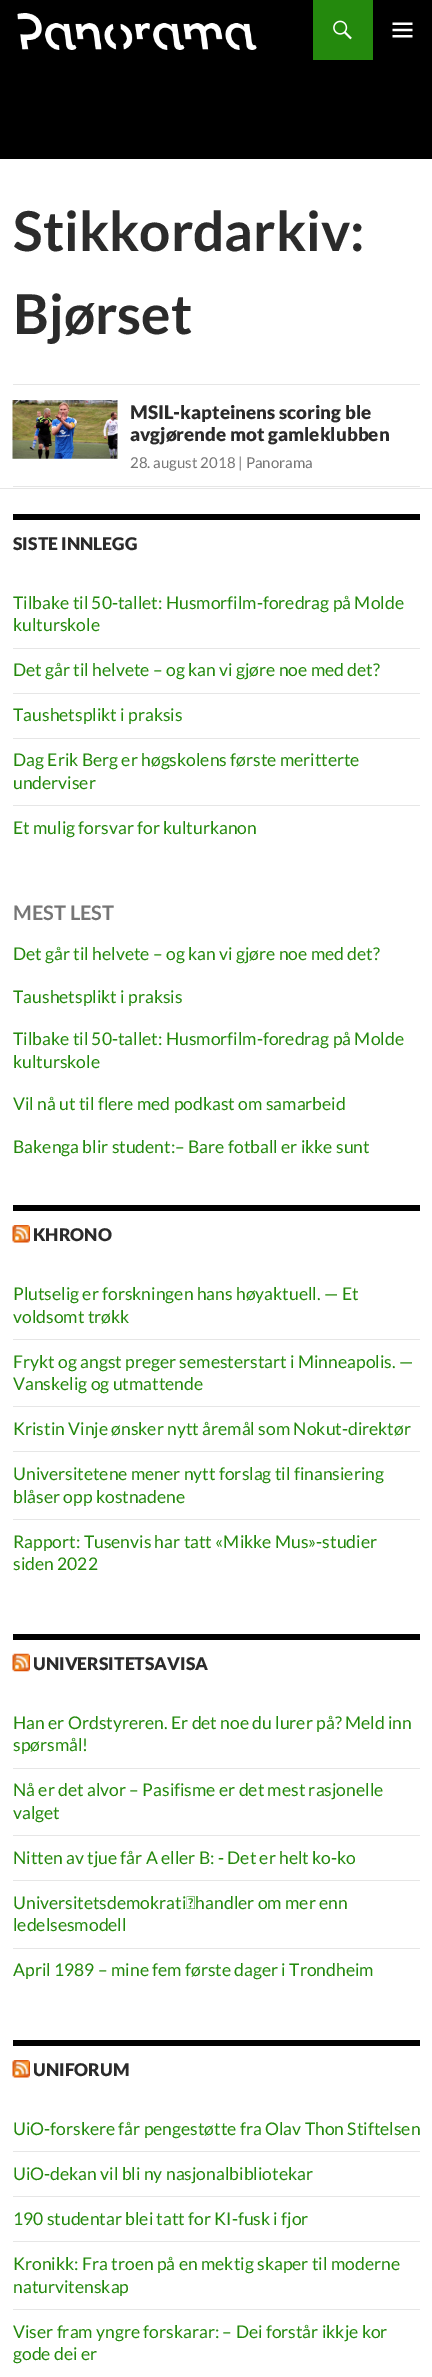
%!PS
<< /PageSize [432 2377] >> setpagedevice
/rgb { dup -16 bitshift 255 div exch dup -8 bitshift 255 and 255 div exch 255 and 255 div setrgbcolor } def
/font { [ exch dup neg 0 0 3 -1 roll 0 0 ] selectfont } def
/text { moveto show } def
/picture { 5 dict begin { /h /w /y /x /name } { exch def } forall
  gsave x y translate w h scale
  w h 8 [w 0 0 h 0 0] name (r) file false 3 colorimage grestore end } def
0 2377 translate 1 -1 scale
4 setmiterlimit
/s1 { /Lato-Bold 55 font 16#2B2B2B rgb } def
/s2 { /Lato-Black 18.75 font 16#2B2B2B rgb } def
/s3 { /Lato-Regular 15 font 16#767676 rgb } def
/s4 { /Lato-Black 17.5 font 16#2B2B2B rgb } def
/s5 { /Lato-Regular 17.5 font 16#24890D rgb } def
/s6 { /Lato-Bold 20 font 16#767676 rgb } def
16#FFFFFF rgb
0 0 432 2377 rectfill
16#000000 rgb
0 0 432 159 rectfill
(pic1.raw) 17 13 240 37 picture
16#24890D rgb
313 0 60 60 rectfill
(pic2.raw) 333 20 19 20 picture
(pic3.raw) 392 22 21 16 picture
16#E6E6E6 rgb
13 384 407 1 rectfill
s1
(Stikkordarkiv:) 13 251 text
(Bjørset) 13 334 text
16#E6E6E6 rgb
13 486 407 1 rectfill
(pic4.raw) 12 400 106 59 picture
s2
(MSIL-kapteinens scoring ble) 130 419 text
(avgjørende mot gamleklubben) 130 441 text
s3
(28. august 2018 | Panorama) 130 468 text
16#E6E6E6 rgb
0 488 432 1 rectfill
16#000000 rgb
13 514 407 6 rectfill
s4
(SISTE INNLEGG) 13 550 text
s5
(Tilbake til 50-tallet: Husmorfilm-foredrag på Molde) 13 609 text
(kulturskole) 13 631 text
16#E6E6E6 rgb
13 648 407 1 rectfill
s5
(Det går til helvete – og kan vi gjøre noe med det?) 13 676 text
16#E6E6E6 rgb
13 693 407 1 rectfill
s5
(Taushetsplikt i praksis) 13 721 text
16#E6E6E6 rgb
13 738 407 1 rectfill
s5
(Dag Erik Berg er høgskolens første meritterte) 13 766 text
(underviser) 13 789 text
16#E6E6E6 rgb
13 805 407 1 rectfill
s5
(Et mulig forsvar for kulturkanon) 13 834 text
s6
(MEST LEST) 13 920 text
s5
(Det går til helvete – og kan vi gjøre noe med det?) 13 960 text
(Taushetsplikt i praksis) 13 1003 text
(Tilbake til 50-tallet: Husmorfilm-foredrag på Molde) 13 1045 text
(kulturskole) 13 1068 text
(Vil nå ut til flere med podkast om samarbeid) 13 1110 text
(Bakenga blir student:– Bare fotball er ikke sunt) 13 1153 text
16#000000 rgb
13 1205 407 6 rectfill
(pic5.raw) 12 1225 18 18 picture
s4
(KHRONO) 33 1241 text
s5
(Plutselig er forskningen hans høyaktuell. — Et) 13 1300 text
(voldsomt trøkk) 13 1323 text
16#E6E6E6 rgb
13 1339 407 1 rectfill
s5
(Frykt og angst preger semesterstart i Minneapolis. —) 13 1368 text
(Vanskelig og utmattende) 13 1390 text
16#E6E6E6 rgb
13 1406 407 1 rectfill
s5
(Kristin Vinje ønsker nytt åremål som Nokut-direktør) 13 1435 text
16#E6E6E6 rgb
13 1451 407 1 rectfill
s5
(Universitetene mener nytt forslag til finansiering) 13 1480 text
(blåser opp kostnadene) 13 1503 text
16#E6E6E6 rgb
13 1519 407 1 rectfill
s5
(Rapport: Tusenvis har tatt «Mikke Mus»-studier) 13 1548 text
(siden 2022) 13 1570 text
16#000000 rgb
13 1634 407 6 rectfill
(pic6.raw) 12 1653 18 19 picture
s4
(UNIVERSITETSAVISA) 33 1670 text
s5
(Han er Ordstyreren. Er det noe du lurer på? Meld inn) 13 1729 text
(spørsmål!) 13 1751 text
16#E6E6E6 rgb
13 1768 407 1 rectfill
s5
(Nå er det alvor – Pasifisme er det mest rasjonelle) 13 1796 text
(valget) 13 1819 text
16#E6E6E6 rgb
13 1835 407 1 rectfill
s5
(Nitten av tjue får A eller B: - Det er helt ko-ko) 13 1864 text
16#E6E6E6 rgb
13 1880 407 1 rectfill
s5
(Universitetsdemokrati handler om mer enn) 13 1909 text
(ledelsesmodell) 13 1931 text
16#E6E6E6 rgb
13 1948 407 1 rectfill
s5
(April 1989 – mine fem første dager i Trondheim) 13 1976 text
16#000000 rgb
13 2040 407 6 rectfill
(pic5.raw) 12 2060 18 18 picture
s4
(UNIFORUM) 33 2076 text
s5
(UiO-forskere får pengestøtte fra Olav Thon Stiftelsen) 13 2135 text
16#E6E6E6 rgb
13 2151 407 1 rectfill
s5
(UiO-dekan vil bli ny nasjonalbibliotekar) 13 2180 text
16#E6E6E6 rgb
13 2196 407 1 rectfill
s5
(190 studentar blei tatt for KI-fusk i fjor) 13 2225 text
16#E6E6E6 rgb
13 2241 407 1 rectfill
s5
(Kronikk: Fra troen på en mektig skaper til moderne) 13 2270 text
(naturvitenskap) 13 2293 text
16#E6E6E6 rgb
13 2309 407 1 rectfill
s5
(Viser fram yngre forskarar: – Dei forstår ikkje kor) 13 2338 text
(gode dei er) 13 2360 text
showpage
